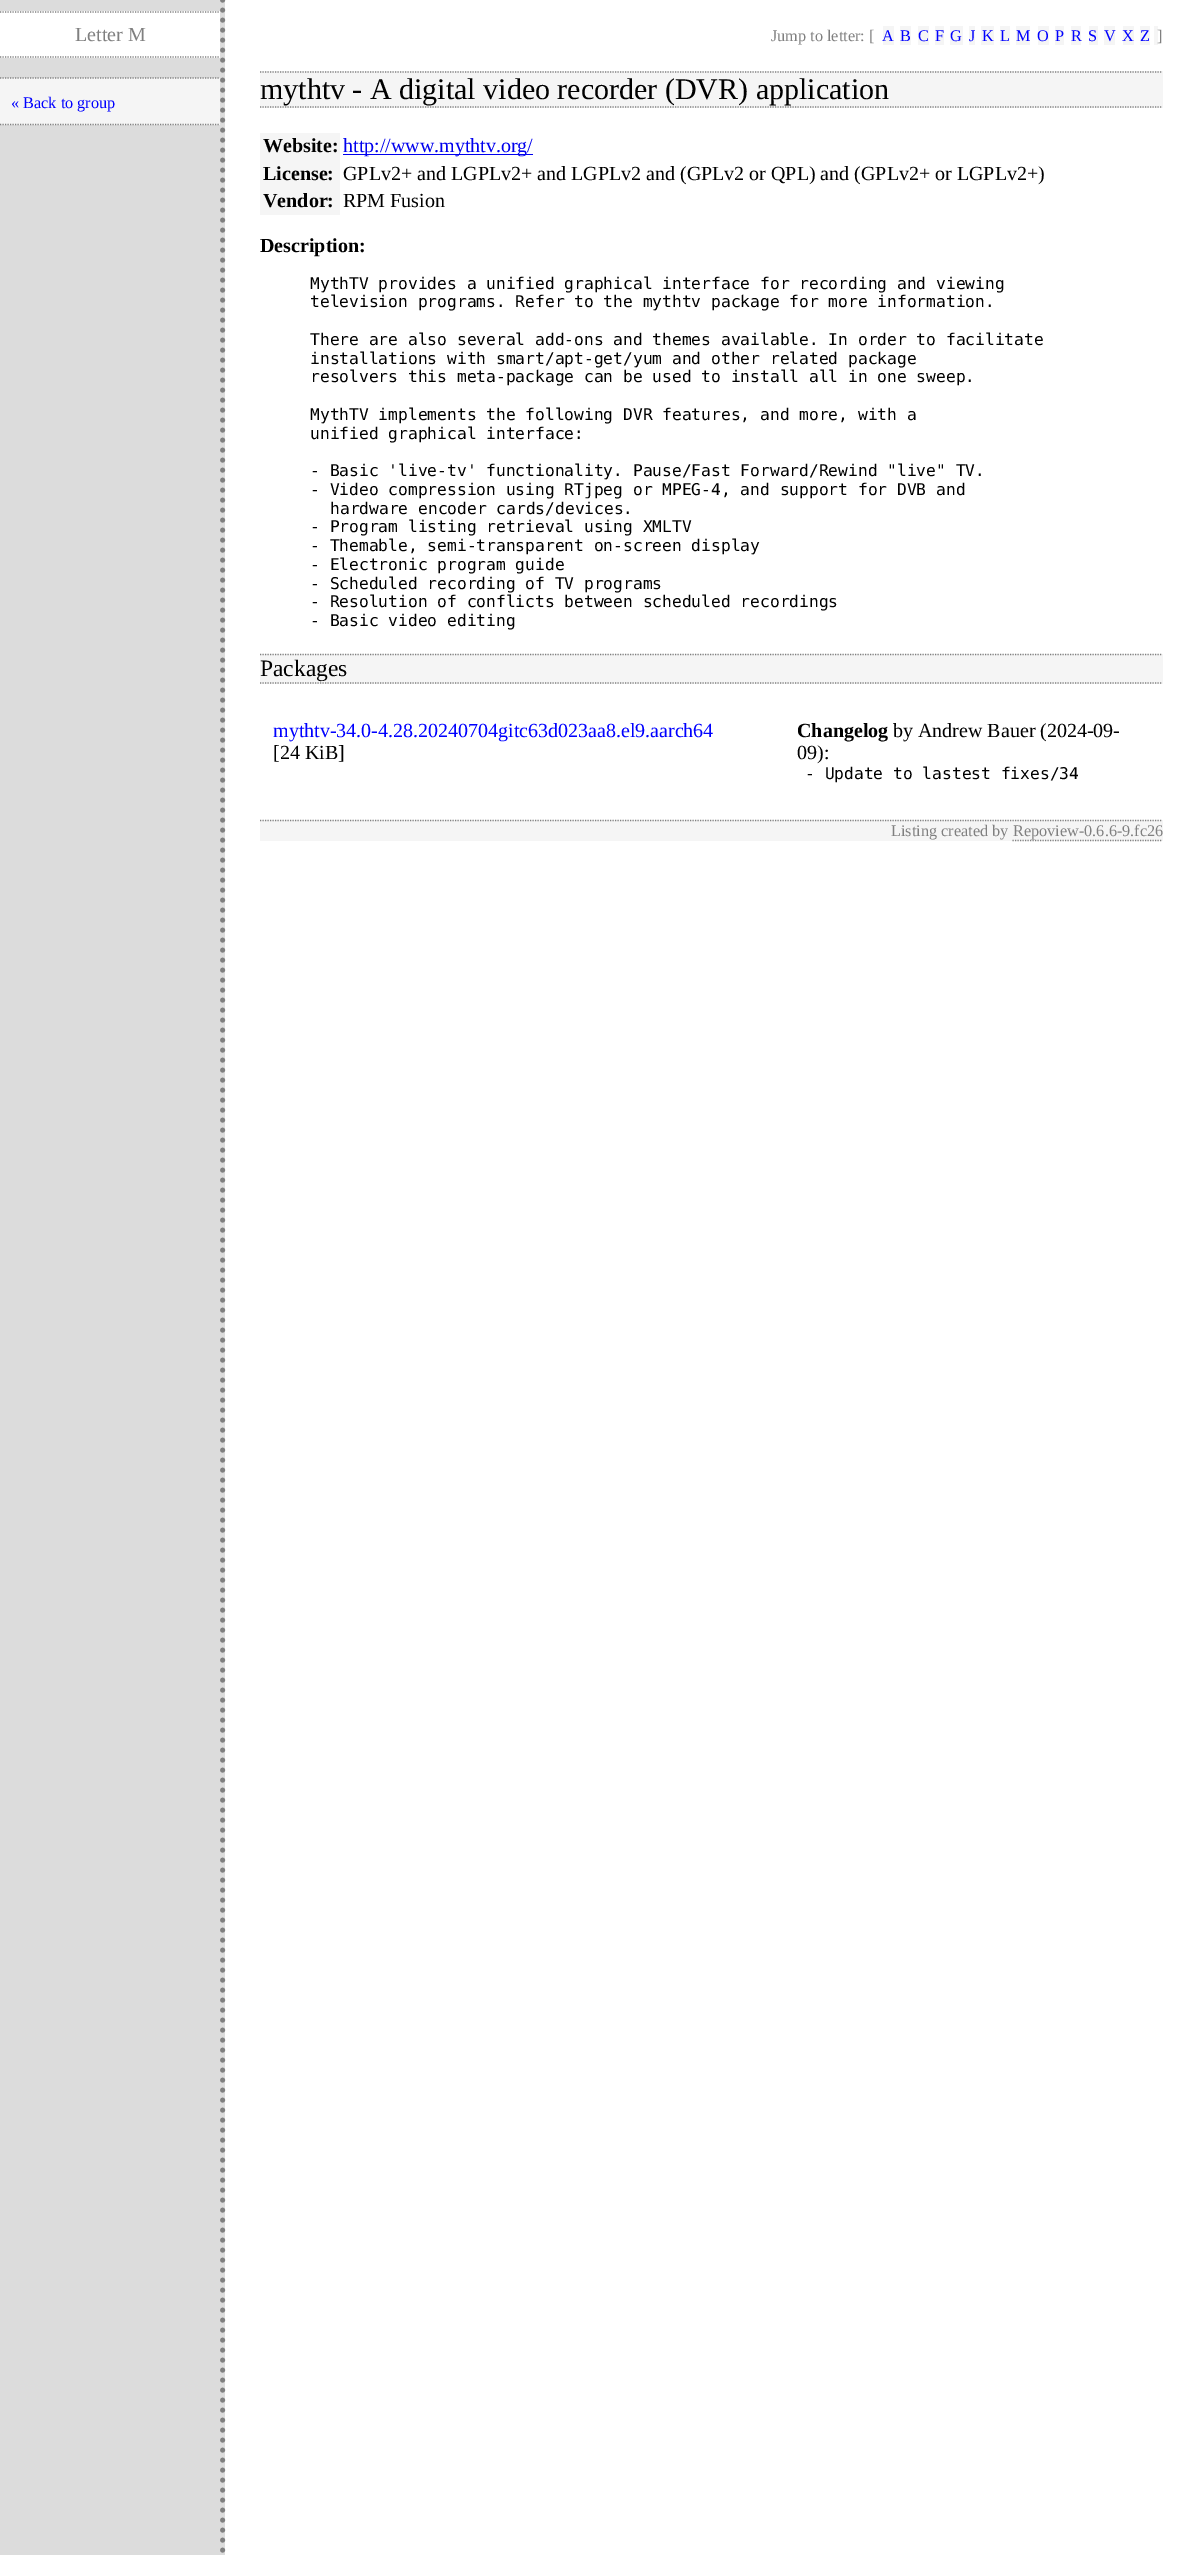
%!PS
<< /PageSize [1203 2555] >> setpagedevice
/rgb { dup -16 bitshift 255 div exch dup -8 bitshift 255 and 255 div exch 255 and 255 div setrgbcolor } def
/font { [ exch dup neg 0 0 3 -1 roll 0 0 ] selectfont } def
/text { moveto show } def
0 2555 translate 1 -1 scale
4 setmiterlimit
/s1 { /LiberationSerif-Regular 20 font 16#808080 rgb } def
/s2 { /LiberationSerif-Regular 16.25 font 16#0000FF rgb } def
/s3 { /LiberationSerif-Regular 16.25 font 16#808080 rgb } def
/s4 { /LiberationSerif-Regular 30 font 16#000000 rgb } def
/s5 { /LiberationSerif-Bold 20 font 16#000000 rgb } def
/s6 { /LiberationSerif-Regular 20 font 16#0000EE rgb } def
/s7 { /LiberationSerif-Regular 20 font 16#000000 rgb } def
/s8 { /DejaVuSansMono-Regular 16.25 font 16#000000 rgb } def
/s9 { /LiberationSerif-Regular 23.5 font 16#000000 rgb } def
/s10 { /LiberationSerif-Regular 20 font 16#0000FF rgb } def
16#FFFFFF rgb
0 0 1203 2555 rectfill
16#DCDCDC rgb
0 0 225 2555 rectfill
16#808080 rgb
5 setlinewidth
1 setlinecap
[0 10] 0 setdash
222.5 0 moveto 222.5 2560 lineto stroke
16#FFFFFF rgb
0 11 220 47 rectfill
16#808080 rgb
1.2 setlinewidth
0 setlinecap
[1.25 1.25] 0 setdash
0 12 moveto 220 12 lineto stroke
0 57 moveto 220 57 lineto stroke
s1
(Letter M) 75 41 text
16#F5F5F5 rgb
0 78 220 47 rectfill
16#808080 rgb
0 78 moveto 220 78 lineto stroke
0 124.5 moveto 220 124.5 lineto stroke
s2
(« Back to group) 11 108 text
s3
(Jump to letter: [) 771 41 text
16#F5F5F5 rgb
883 26 11 19 rectfill
s2
(A) 882 41 text
16#F5F5F5 rgb
900 26 11 19 rectfill
s2
(B) 900 41 text
16#F5F5F5 rgb
918 26 11 19 rectfill
s2
(C) 918 41 text
16#F5F5F5 rgb
935 26 9 19 rectfill
s2
(F) 935 41 text
16#F5F5F5 rgb
950 26 13 19 rectfill
s2
(G) 950 41 text
16#F5F5F5 rgb
969 26 6 19 rectfill
s2
(J) 969 41 text
16#F5F5F5 rgb
981 26 13 19 rectfill
s2
(K) 982 41 text
16#F5F5F5 rgb
1000 26 10 19 rectfill
s2
(L) 1000 41 text
16#F5F5F5 rgb
1016 26 14 19 rectfill
s2
(M) 1016 41 text
16#F5F5F5 rgb
1038 26 11 19 rectfill
s2
(O) 1037 41 text
16#F5F5F5 rgb
1055 26 9 19 rectfill
s2
(P) 1055 41 text
16#F5F5F5 rgb
1071 26 10 19 rectfill
s2
(R) 1071 41 text
16#F5F5F5 rgb
1089 26 9 19 rectfill
s2
(S) 1088 41 text
16#F5F5F5 rgb
1104 26 11 19 rectfill
s2
(V) 1104 41 text
16#F5F5F5 rgb
1123 26 11 19 rectfill
s2
(X) 1122 41 text
16#F5F5F5 rgb
1140 26 10 19 rectfill
s2
(Z) 1140 41 text
16#F5F5F5 rgb
1154 26 4 19 rectfill
s3
(]) 1157 41 text
16#F5F5F5 rgb
260 71 903 37 rectfill
16#808080 rgb
260 72 moveto 1162.5 72 lineto stroke
260 107 moveto 1162.5 107 lineto stroke
s4
(mythtv - A digital video recorder \(DVR\) application) 260 99 text
16#F5F5F5 rgb
260 133 80 82 rectfill
s5
(Website:) 263 152 text
16#0000EE rgb
343 154 190 1 rectfill
s6
(http://www.mythtv.org/) 343 152 text
s5
(License:) 263 180 text
s7
(GPLv2+ and LGPLv2+ and LGPLv2 and \(GPLv2 or QPL\) and \(GPLv2+ or LGPLv2+\)) 343 180 text
s5
(Vendor:) 263 207 text
s7
(RPM Fusion) 343 207 text
s5
(Description:) 260 252 text
s8
(MythTV provides a unified graphical interface for recording and viewing) 310 289 text
(television programs. Refer to the mythtv package for more information.) 310 307 text
(There are also several add-ons and themes available. In order to facilitate) 310 345 text
(installations with smart/apt-get/yum and other related package) 310 364 text
(resolvers this meta-package can be used to install all in one sweep.) 310 382 text
(MythTV implements the following DVR features, and more, with a) 310 420 text
(unified graphical interface:) 310 439 text
(- Basic 'live-tv' functionality. Pause/Fast Forward/Rewind "live" TV.) 310 476 text
(- Video compression using RTjpeg or MPEG-4, and support for DVB and) 310 495 text
(hardware encoder cards/devices.) 330 514 text
(- Program listing retrieval using XMLTV) 310 532 text
(- Themable, semi-transparent on-screen display) 310 551 text
(- Electronic program guide) 310 570 text
(- Scheduled recording of TV programs) 310 589 text
(- Resolution of conflicts between scheduled recordings) 310 607 text
(- Basic video editing) 310 626 text
16#F5F5F5 rgb
260 654 903 30 rectfill
16#808080 rgb
260 654.5 moveto 1162.5 654.5 lineto stroke
260 683 moveto 1162.5 683 lineto stroke
s9
(Packages) 260 676 text
s10
(mythtv-34.0-4.28.20240704gitc63d023aa8.el9.aarch64) 273 737 text
s7
([24 KiB]) 273 759 text
s5
(Changelog) 797 737 text
s7
(by Andrew Bauer \(2024-09-) 893 737 text
(09\):) 797 759 text
s8
(- Update to lastest fixes/34) 805 779 text
16#F5F5F5 rgb
260 820 903 21 rectfill
16#808080 rgb
260 820.5 moveto 1162.5 820.5 lineto stroke
s3
(Listing created by) 891 836 text
1012.5 840.5 moveto 1162.5 840.5 lineto stroke
(Repoview-0.6.6-9.fc26) 1013 836 text
showpage
